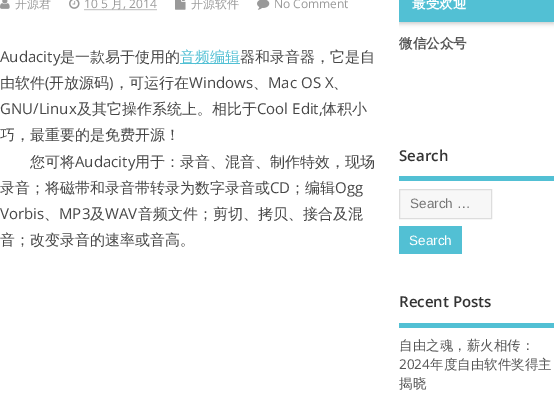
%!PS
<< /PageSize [554 414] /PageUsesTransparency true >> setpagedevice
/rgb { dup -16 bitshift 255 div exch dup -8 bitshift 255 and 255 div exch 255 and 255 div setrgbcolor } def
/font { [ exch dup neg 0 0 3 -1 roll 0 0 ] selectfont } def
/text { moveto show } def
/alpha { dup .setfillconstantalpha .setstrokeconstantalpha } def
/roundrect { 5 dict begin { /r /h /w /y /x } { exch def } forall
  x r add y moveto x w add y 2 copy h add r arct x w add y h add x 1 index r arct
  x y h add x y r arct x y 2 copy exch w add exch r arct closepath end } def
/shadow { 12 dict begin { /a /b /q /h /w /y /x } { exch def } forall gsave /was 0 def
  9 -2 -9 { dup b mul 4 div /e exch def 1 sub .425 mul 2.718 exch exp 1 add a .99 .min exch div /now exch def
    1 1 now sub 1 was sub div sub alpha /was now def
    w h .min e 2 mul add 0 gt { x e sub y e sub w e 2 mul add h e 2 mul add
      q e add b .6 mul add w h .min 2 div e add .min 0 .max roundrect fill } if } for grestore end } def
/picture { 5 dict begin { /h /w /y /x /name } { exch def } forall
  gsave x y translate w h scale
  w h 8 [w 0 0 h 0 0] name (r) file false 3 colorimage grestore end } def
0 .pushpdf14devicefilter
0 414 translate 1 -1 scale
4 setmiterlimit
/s1 { /WenQuanYiZenHei-Medium 12 font 16#999999 rgb } def
/s2 { /OpenSans-Regular 12 font 16#999999 rgb } def
/s3 { /OpenSans-Regular 15 font 16#464646 rgb } def
/s4 { /WenQuanYiZenHei-Medium 15 font 16#464646 rgb } def
/s5 { /WenQuanYiZenHei-Medium 15 font 16#52C0D4 rgb } def
/s6 { /WenQuanYiZenHei-Bold 13.5 font 16#FFFFFF rgb } def
/s7 { /WenQuanYiZenHei-Bold 13.5 font 16#555555 rgb } def
/s8 { /OpenSans-SemiBold 15 font 16#333333 rgb } def
/s9 { /LiberationSans-Regular 13.5 font 16#757575 rgb } def
/s10 { /LiberationSans-Regular 13.5 font 16#FFFFFF rgb } def
/s11 { /WenQuanYiZenHei-Medium 13.5 font 16#555555 rgb } def
/s12 { /OpenSans-Regular 13.5 font 16#555555 rgb } def
16#FFFFFF rgb
0 0 554 414 rectfill
(pic1.raw) 0 0 10 9 picture
s1
(开源君) 15 8 text
(pic2.raw) 69 0 11 9 picture
s2
(10 5) 84 8 text
[1 1] 0 setdash
84.5 9.5 moveto 157 9.5 lineto stroke
s1
(月) 111 8 text
s2
(, 2014) 123 8 text
(pic3.raw) 175 0 11 10 picture
s1
(开源软件) 191 8 text
(pic4.raw) 257 0 13 10 picture
s2
(No Comment) 274 8 text
s3
(Audacity) 0 62 text
s4
(是一款易于使用的) 60 62 text
16#52C0D4 rgb
180 63 60 1 rectfill
(音频编辑) 180 62 text
s4
(器和录音器，它是自) 240 62 text
(由软件 开放源码 ，可运行在) 0 88 text
s3
(Windows) 189 88 text
(\() 45 88 text
(\)) 109 88 text
s4
(、) 253 88 text
s3
(Mac OS X) 268 88 text
s4
(、) 333 88 text
s3
(GNU/Linux) 0 114 text
s4
(及其它操作系统上。相比于) 77 114 text
s3
(Cool Edit,) 257 114 text
s4
(体积小) 322 114 text
(巧，最重要的是免费开源！) 0 140 text
(您可将) 30 167 text
s3
(Audacity) 75 167 text
s4
(用于：录音、混音、制作特效，现场) 135 167 text
(录音；将磁带和录音带转录为数字录音或) 0 193 text
s3
(CD) 270 193 text
s4
(；编辑) 290 193 text
s3
(Ogg) 335 193 text
(Vorbis) 0 219 text
s4
(、) 44 219 text
s3
(MP3) 59 219 text
s4
(及) 90 219 text
s3
(WAV) 105 219 text
s4
(音频文件；剪切、拷贝、接合及混) 138 219 text
(音；改变录音的速率或音高。) 0 245 text
gsave
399 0 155 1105 rectclip
16#CCCCCC rgb
399 -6 155 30 0 2 1 shadow
grestore
16#52C0D4 rgb
399 0 155 22 rectfill
s6
(最受欢迎) 412 8 text
s7
(微信公众号) 399 48 text
16#52C0D4 rgb
399 176 155 5 rectfill
s8
(Search) 399 161 text
16#F7F7F7 rgb
399.5 189.5 moveto 491.5 189.5 lineto 491.5 218.5 lineto 399.5 218.5 lineto closepath gsave fill grestore
16#DDDDDD rgb
[] 0 setdash
stroke
s9
(Search …) 410 208 text
16#52C0D4 rgb
399 226 63 28 rectfill
s10
(Search) 409 245 text
16#52C0D4 rgb
399 323 155 5 rectfill
s8
(Recent Posts) 399 307 text
s11
(自由之魂，薪火相传：) 399 350 text
s12
(2024) 399 369 text
s11
(年度自由软件奖得主) 430 369 text
(揭晓) 399 388 text
.poppdf14devicefilter showpage
